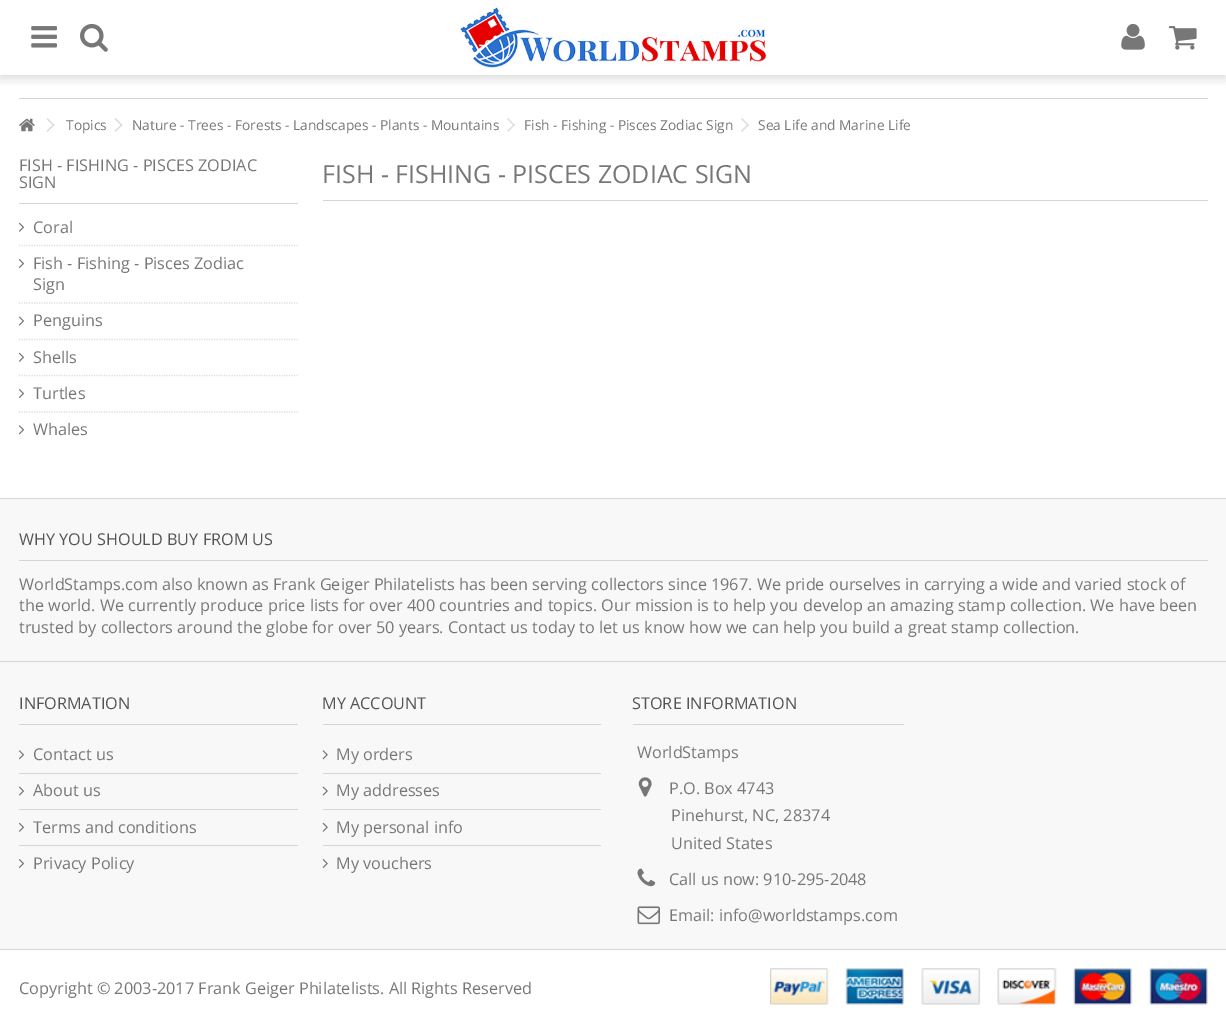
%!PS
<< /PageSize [1226 1026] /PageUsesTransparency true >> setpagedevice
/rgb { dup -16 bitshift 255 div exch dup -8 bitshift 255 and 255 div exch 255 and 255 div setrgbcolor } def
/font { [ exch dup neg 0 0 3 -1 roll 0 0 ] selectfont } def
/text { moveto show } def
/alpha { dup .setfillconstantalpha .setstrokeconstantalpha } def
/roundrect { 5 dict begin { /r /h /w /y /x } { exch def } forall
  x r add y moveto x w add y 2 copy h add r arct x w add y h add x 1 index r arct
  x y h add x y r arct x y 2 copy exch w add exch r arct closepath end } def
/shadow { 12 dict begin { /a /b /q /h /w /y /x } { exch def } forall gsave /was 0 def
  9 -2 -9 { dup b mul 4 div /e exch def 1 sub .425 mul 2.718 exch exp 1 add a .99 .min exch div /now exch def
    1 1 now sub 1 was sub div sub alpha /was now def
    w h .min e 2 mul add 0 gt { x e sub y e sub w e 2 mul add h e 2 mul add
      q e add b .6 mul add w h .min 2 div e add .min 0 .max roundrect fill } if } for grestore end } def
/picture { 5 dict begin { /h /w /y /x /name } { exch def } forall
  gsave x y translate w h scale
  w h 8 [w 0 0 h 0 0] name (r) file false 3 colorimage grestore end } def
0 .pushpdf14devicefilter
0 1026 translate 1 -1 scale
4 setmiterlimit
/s1 { /OpenSans-Regular 13.75 font 16#777777 rgb } def
/s2 { /OpenSans-Regular 16.25 font 16#777777 rgb } def
/s3 { /OpenSans-Regular 25 font 16#777777 rgb } def
/s4 { /OpenSans-Regular 16.25 font 16#555454 rgb } def
16#FFFFFF rgb
0 0 1226 1026 rectfill
16#D6D4D4 rgb
19 98 1189 1 rectfill
gsave
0 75 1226 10 rectclip
16#000000 rgb
0 3 1226 75 0 6 0.15 shadow
grestore
(pic1.raw) 31 26 26 22 picture
(pic2.raw) 80 23 28 29 picture
(pic3.raw) 459 6 308 63 picture
(pic4.raw) 1121 24 24 26 picture
(pic5.raw) 1168 26 29 24 picture
(pic6.raw) 19 118 16 14 picture
16#DDDDDD rgb
47.5 118 moveto 54.5 125 lineto 53.5 126 lineto 46.5 119 lineto closepath fill
53.5 124 moveto 54.5 125 lineto 47.5 132 lineto 46.5 131 lineto closepath fill
s1
(Topics) 66 130 text
16#DDDDDD rgb
115.5 118 moveto 122.5 125 lineto 121.5 126 lineto 114.5 119 lineto closepath fill
121.5 124 moveto 122.5 125 lineto 115.5 132 lineto 114.5 131 lineto closepath fill
s1
(Nature - Trees - Forests - Landscapes - Plants - Mountains) 132 130 text
16#DDDDDD rgb
508 118 moveto 515 125 lineto 514 126 lineto 507 119 lineto closepath fill
514 124 moveto 515 125 lineto 508 132 lineto 507 131 lineto closepath fill
s1
(Fish - Fishing - Pisces Zodiac Sign) 524 130 text
16#DDDDDD rgb
742 118 moveto 749 125 lineto 748 126 lineto 741 119 lineto closepath fill
748 124 moveto 749 125 lineto 742 132 lineto 741 131 lineto closepath fill
s1
(Sea Life and Marine Life) 758 130 text
16#D6D4D4 rgb
19 203 279 1 rectfill
s2
(FISH - FISHING - PISCES ZODIAC) 19 171 text
(SIGN) 19 188 text
(pic7.raw) 18 222 7 10 picture
(Coral) 33 233 text
16#DDDDDD rgb
1.2 setlinewidth
[1.25 1.25] 0 setdash
19 245.5 moveto 297.5 245.5 lineto stroke
(pic8.raw) 18 259 7 9 picture
s2
(Fish - Fishing - Pisces Zodiac) 33 269 text
(Sign) 33 290 text
16#DDDDDD rgb
19 303 moveto 297.5 303 lineto stroke
(pic9.raw) 18 316 6 10 picture
s2
(Penguins) 33 326 text
16#DDDDDD rgb
19 339.5 moveto 297.5 339.5 lineto stroke
(pic7.raw) 18 352 7 10 picture
s2
(Shells) 33 363 text
16#DDDDDD rgb
19 375.5 moveto 297.5 375.5 lineto stroke
(pic8.raw) 18 389 7 9 picture
s2
(Turtles) 33 399 text
16#DDDDDD rgb
19 412 moveto 297.5 412 lineto stroke
(pic10.raw) 18 425 7 10 picture
s2
(Whales) 33 435 text
16#D6D4D4 rgb
323 200 885 1 rectfill
s3
(FISH - FISHING - PISCES ZODIAC SIGN) 322 183 text
16#F8F8F8 rgb
0 499 1226 162 rectfill
16#D6D4D4 rgb
0 498 1226 1 rectfill
19 560 1189 1 rectfill
s4
(WHY YOU SHOULD BUY FROM US) 19 545 text
s2
(WorldStamps.com also known as Frank Geiger Philatelists has been serving collectors since 1967. We pride ourselves in carrying a wide and varied stock of) 19 590 text
(the world. We currently produce price lists for over 400 countries and topics. Our mission is to help you develop an amazing stamp collection. We have been) 19 611 text
(trusted by collectors around the globe for over 50 years. Contact us today to let us know how we can help you build a great stamp collection.) 19 633 text
16#F8F8F8 rgb
0 662 1226 287 rectfill
16#D6D4D4 rgb
0 661 1226 1 rectfill
0 949 1226 1 rectfill
19 724 279 1 rectfill
s4
(INFORMATION) 19 709 text
(pic11.raw) 18 750 7 10 picture
s2
(Contact us) 33 760 text
16#D6D4D4 rgb
19 773 279 1 rectfill
(pic12.raw) 18 786 6 10 picture
s2
(About us) 33 796 text
16#D6D4D4 rgb
19 809 279 1 rectfill
(pic13.raw) 18 822 7 10 picture
s2
(Terms and conditions) 33 833 text
16#D6D4D4 rgb
19 845 279 1 rectfill
(pic14.raw) 18 859 7 9 picture
s2
(Privacy Policy) 33 869 text
16#D6D4D4 rgb
323 724 278 1 rectfill
s4
(MY ACCOUNT) 322 709 text
(pic15.raw) 322 750 6 10 picture
s2
(My orders) 336 760 text
16#D6D4D4 rgb
323 773 278 1 rectfill
(pic16.raw) 322 786 6 10 picture
s2
(My addresses) 336 796 text
16#D6D4D4 rgb
323 809 278 1 rectfill
(pic17.raw) 322 822 6 10 picture
s2
(My personal info) 336 833 text
16#D6D4D4 rgb
323 845 278 1 rectfill
(pic18.raw) 322 859 6 9 picture
s2
(My vouchers) 336 869 text
16#D6D4D4 rgb
633 724 271 1 rectfill
s4
(STORE INFORMATION) 632 709 text
s2
(WorldStamps) 637 758 text
(pic19.raw) 638 777 14 20 picture
(P.O. Box 4743) 669 794 text
(Pinehurst, NC, 28374) 671 821 text
(United States) 671 849 text
(pic20.raw) 637 868 19 19 picture
(Call us now: 910-295-2048) 669 885 text
(pic21.raw) 637 906 23 19 picture
(Email: info@worldstamps.com) 669 921 text
(Copyright © 2003-2017 Frank Geiger Philatelists. All Rights Reserved) 19 994 text
(pic22.raw) 770 968 438 37 picture
.poppdf14devicefilter showpage
